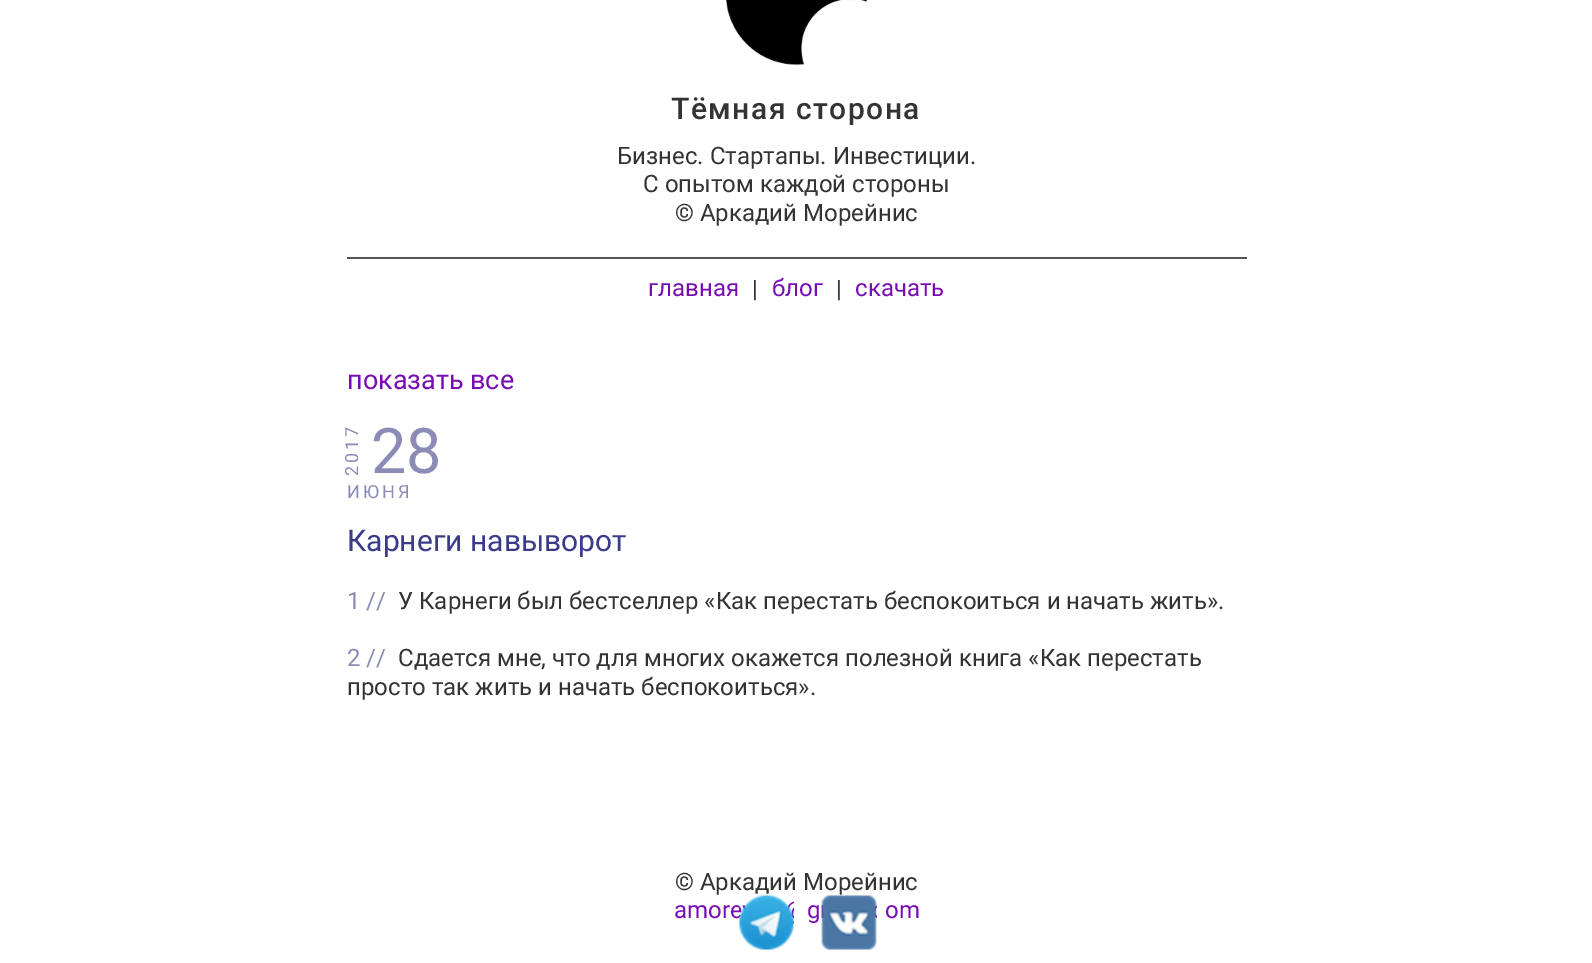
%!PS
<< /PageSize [1592 963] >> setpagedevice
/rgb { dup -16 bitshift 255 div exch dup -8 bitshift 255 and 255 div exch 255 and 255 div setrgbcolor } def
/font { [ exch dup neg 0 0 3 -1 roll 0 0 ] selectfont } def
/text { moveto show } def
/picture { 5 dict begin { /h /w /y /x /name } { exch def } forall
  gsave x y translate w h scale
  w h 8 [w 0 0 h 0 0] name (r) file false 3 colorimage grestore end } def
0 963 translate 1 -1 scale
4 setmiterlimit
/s1 { /Roboto-Regular 24 font 16#333333 rgb } def
/s2 { /Roboto-Regular 24 font 16#780DB4 rgb } def
/s3 { /Roboto-Regular 27 font 16#780DB4 rgb } def
/s4 { /Roboto-Regular 63 font 16#8B8BB6 rgb } def
/s5 { /Roboto-Regular 30 font 16#3A3B8B rgb } def
/s6 { /Roboto-Regular 24 font 16#8B8BB6 rgb } def
16#FFFFFF rgb
0 0 1592 963 rectfill
(pic1.raw) 726 0 141 65 picture
/Roboto-Medium 30 font
16#333333 rgb
671 119 moveto 1.5 0 (Тёмная сторона) ashow
s1
(Бизнес. Стартапы. Инвестиции.) 617 164 text
(С опытом каждой стороны) 643 192 text
(© Аркадий Морейнис) 675 221 text
16#555555 rgb
347 257 900 2 rectfill
s2
(главная) 648 296 text
s1
(|) 752 297 text
s2
(блог) 772 296 text
s1
(|) 836 297 text
s2
(скачать) 855 296 text
s3
(показать все) 347 389 text
/Roboto-Regular 18 font
16#8B8BB6 rgb
gsave 358 476 translate -90 rotate 0 0 moveto 3 0 (2017) ashow grestore
s4
(28) 371 473 text
/Roboto-Regular 18 font
347 498 moveto 3 0 (ИЮНЯ) ashow
s5
(Карнеги навыворот) 347 551 text
s6
(1 //) 347 609 text
s1
(У Карнеги был бестселлер «Как перестать беспокоиться и начать жить».) 398 609 text
s6
(2 //) 347 666 text
s1
(Сдается мне, что для многих окажется полезной книга «Как перестать) 398 666 text
(просто так жить и начать беспокоиться».) 347 695 text
(© Аркадий Морейнис) 675 890 text
s2
(amore) 674 918 text
(g) 807 918 text
(om) 885 918 text
(pic2.raw) 739 895 55 55 picture
(pic3.raw) 821 895 56 55 picture
showpage
